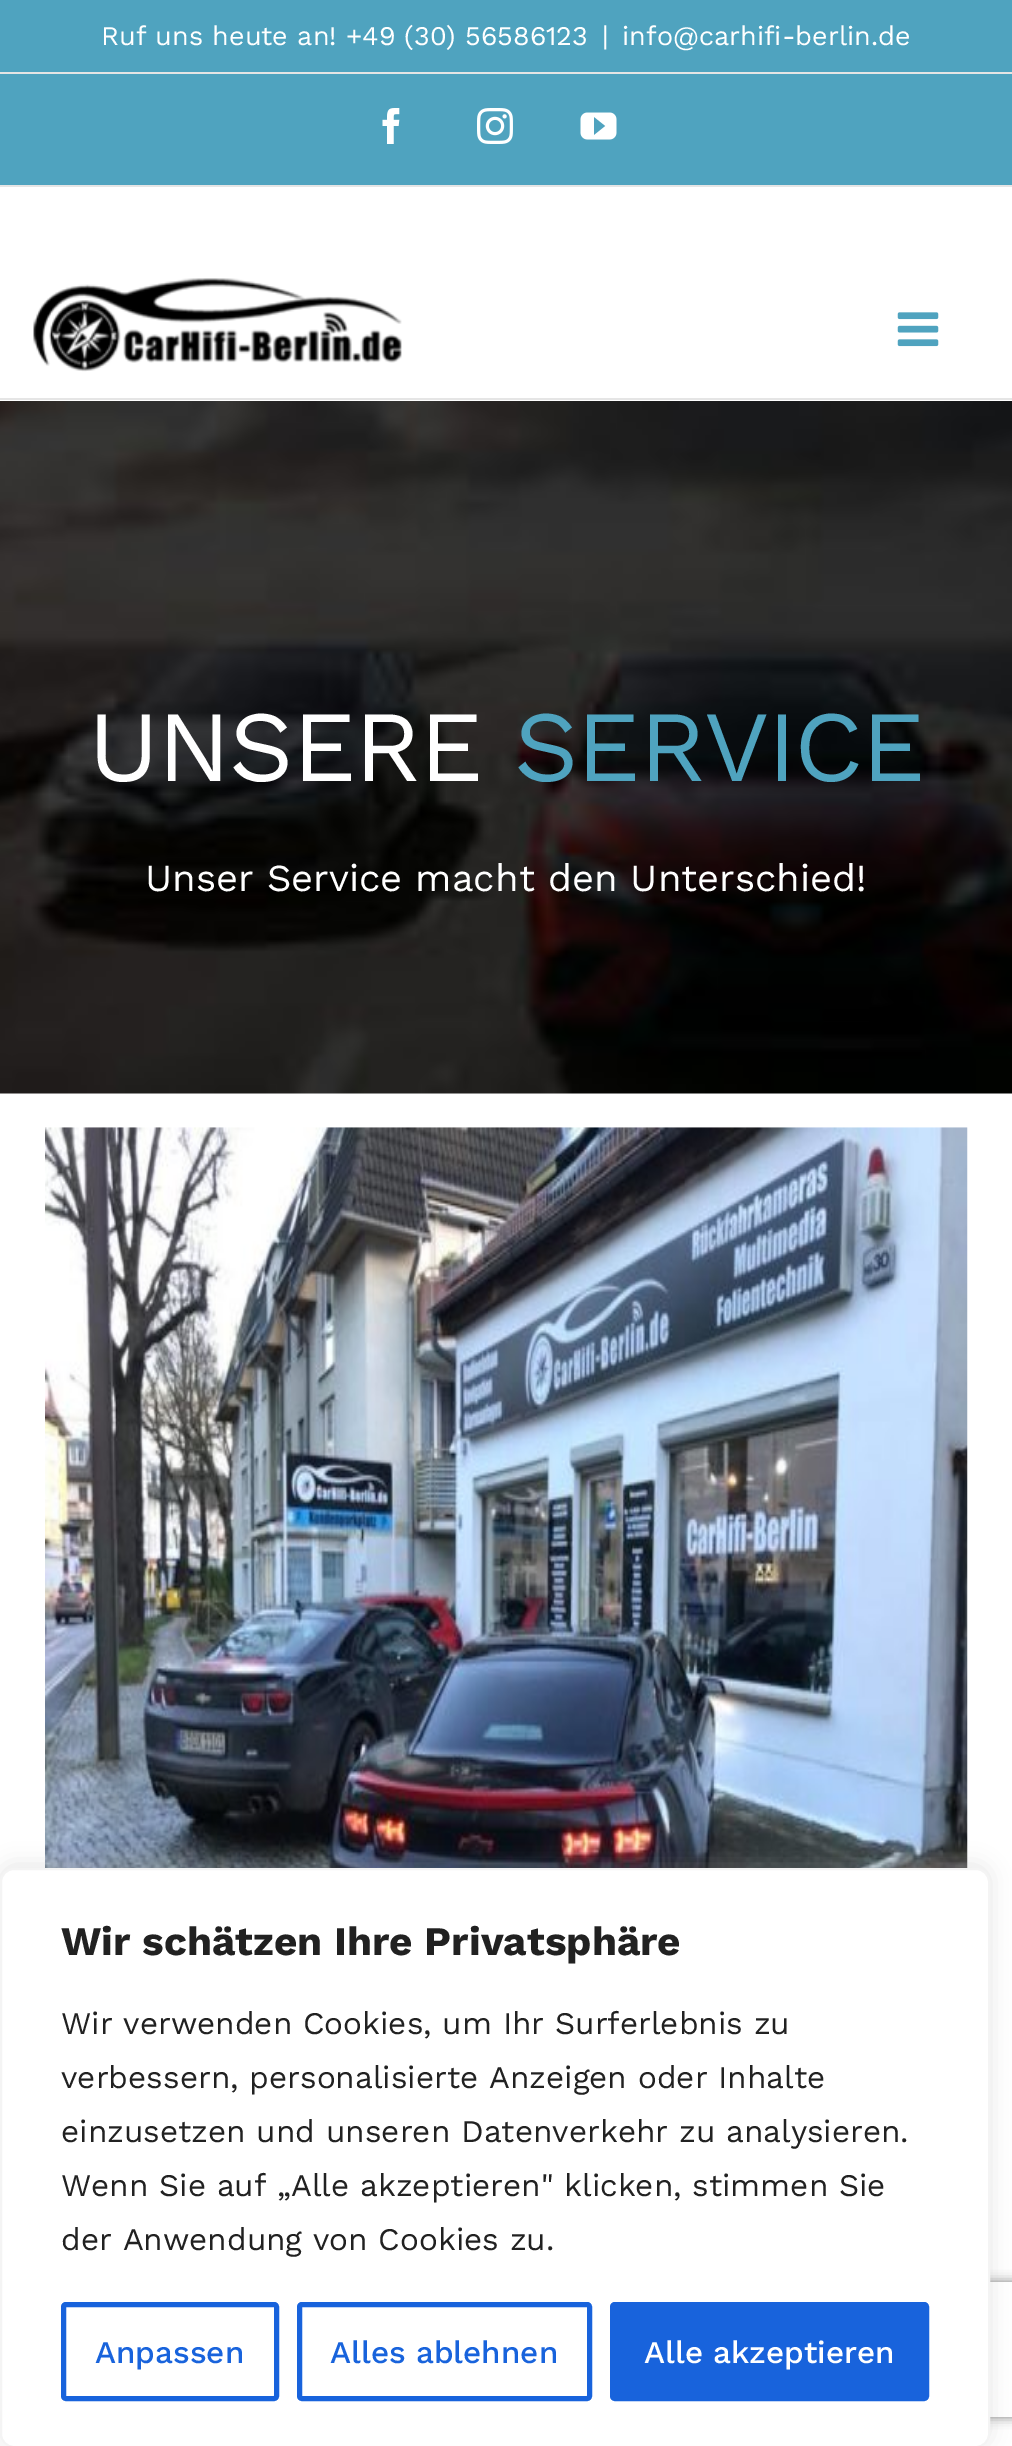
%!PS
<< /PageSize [1012 2446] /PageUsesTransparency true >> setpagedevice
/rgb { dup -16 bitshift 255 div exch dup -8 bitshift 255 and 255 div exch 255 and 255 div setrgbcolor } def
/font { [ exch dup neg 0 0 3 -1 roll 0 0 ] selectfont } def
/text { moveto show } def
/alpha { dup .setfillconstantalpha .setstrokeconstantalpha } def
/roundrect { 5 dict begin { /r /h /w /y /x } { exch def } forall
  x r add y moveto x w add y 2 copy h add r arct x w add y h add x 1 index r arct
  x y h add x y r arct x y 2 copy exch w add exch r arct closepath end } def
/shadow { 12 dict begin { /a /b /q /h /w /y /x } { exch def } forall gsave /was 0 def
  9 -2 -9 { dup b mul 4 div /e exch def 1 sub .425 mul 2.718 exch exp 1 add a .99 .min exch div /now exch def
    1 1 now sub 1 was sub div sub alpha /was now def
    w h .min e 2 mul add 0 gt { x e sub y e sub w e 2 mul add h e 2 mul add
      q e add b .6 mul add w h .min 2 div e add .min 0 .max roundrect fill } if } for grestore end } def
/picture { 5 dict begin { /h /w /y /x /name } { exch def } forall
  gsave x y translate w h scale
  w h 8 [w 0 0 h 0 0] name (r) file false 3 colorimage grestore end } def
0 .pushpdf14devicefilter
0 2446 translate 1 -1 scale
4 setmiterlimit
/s1 { /WorkSans-Regular 27 font 16#FFFFFF rgb } def
/s2 { /WorkSans-Regular 38.25 font 16#FFFFFF rgb } def
/s3 { /WorkSans-Bold 40.5 font 16#212121 rgb } def
/s4 { /WorkSans-Regular 31.5 font 16#212121 rgb } def
/s5 { /WorkSans-Medium 31.5 font 16#1863DC rgb } def
/s6 { /WorkSans-Medium 31.5 font 16#FFFFFF rgb } def
16#FFFFFF rgb
0 0 1012 2446 rectfill
16#4FA3BF rgb
0 0 1012 185 rectfill
16#E5E5E5 rgb
0 185 1012 2 rectfill
0 72 1012 2 rectfill
s1
(Ruf uns heute an! +49 \(30\) 56586123) 101 45 text
(|) 602 45 text
(info@carhifi-berlin.de) 622 45 text
(pic1.raw) 382 108 18 36 picture
(pic2.raw) 477 108 36 36 picture
(pic3.raw) 580 112 37 28 picture
16#E5E5E5 rgb
0 398 1012 2 rectfill
(pic4.raw) 33 278 369 94 picture
(pic5.raw) 897 312 42 35 picture
(pic6.raw) 0 401 1012 693 picture
/WorkSans-Regular 101 font
16#FFFFFF rgb
88 781 moveto -2.25 0 (UNSERE) ashow
16#4FA3BF rgb
514 781 moveto -2.25 0 (SERVICE) ashow
s2
(Unser Service macht den Unterschied!) 145 891 text
(pic7.raw) 45 1127 923 741 picture
16#ACABAB rgb
0 1865 990 581 14 11 0.3 shadow
gsave
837 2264 moveto 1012 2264 lineto 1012 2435 lineto 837 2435 lineto closepath 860 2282 moveto 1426 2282 lineto 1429 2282 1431 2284 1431 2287 curveto 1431 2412 lineto 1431 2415 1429 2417 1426 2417 curveto 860 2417 lineto 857 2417 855 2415 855 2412 curveto 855 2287 lineto 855 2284 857 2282 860 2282 curveto closepath eoclip newpath
16#808080 rgb
855 2282 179 135 5 5.5 1 shadow
grestore
16#FFFFFF rgb
1 1869 988 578 13 roundrect gsave fill grestore
16#F4F4F4 rgb
2 setlinewidth
stroke
s3
(Wir schätzen Ihre Privatsphäre) 61 1955 text
s4
(Wir verwenden Cookies, um Ihr Surferlebnis zu) 61 2034 text
(verbessern, personalisierte Anzeigen oder Inhalte) 61 2088 text
(einzusetzen und unseren Datenverkehr zu analysieren.) 61 2142 text
(Wenn Sie auf „Alle akzeptieren" klicken, stimmen Sie) 61 2196 text
(der Anwendung von Cookies zu.) 61 2250 text
16#1863DC rgb
5 setlinewidth
63.5 2304.5 213 94 2.5 roundrect stroke
s5
(Anpassen) 95 2363 text
299.5 2304.5 290 94 2.5 roundrect stroke
(Alles ablehnen) 330 2363 text
612.5 2304.5 314 94 2.5 roundrect gsave fill grestore
stroke
s6
(Alle akzeptieren) 644 2363 text
.poppdf14devicefilter showpage
